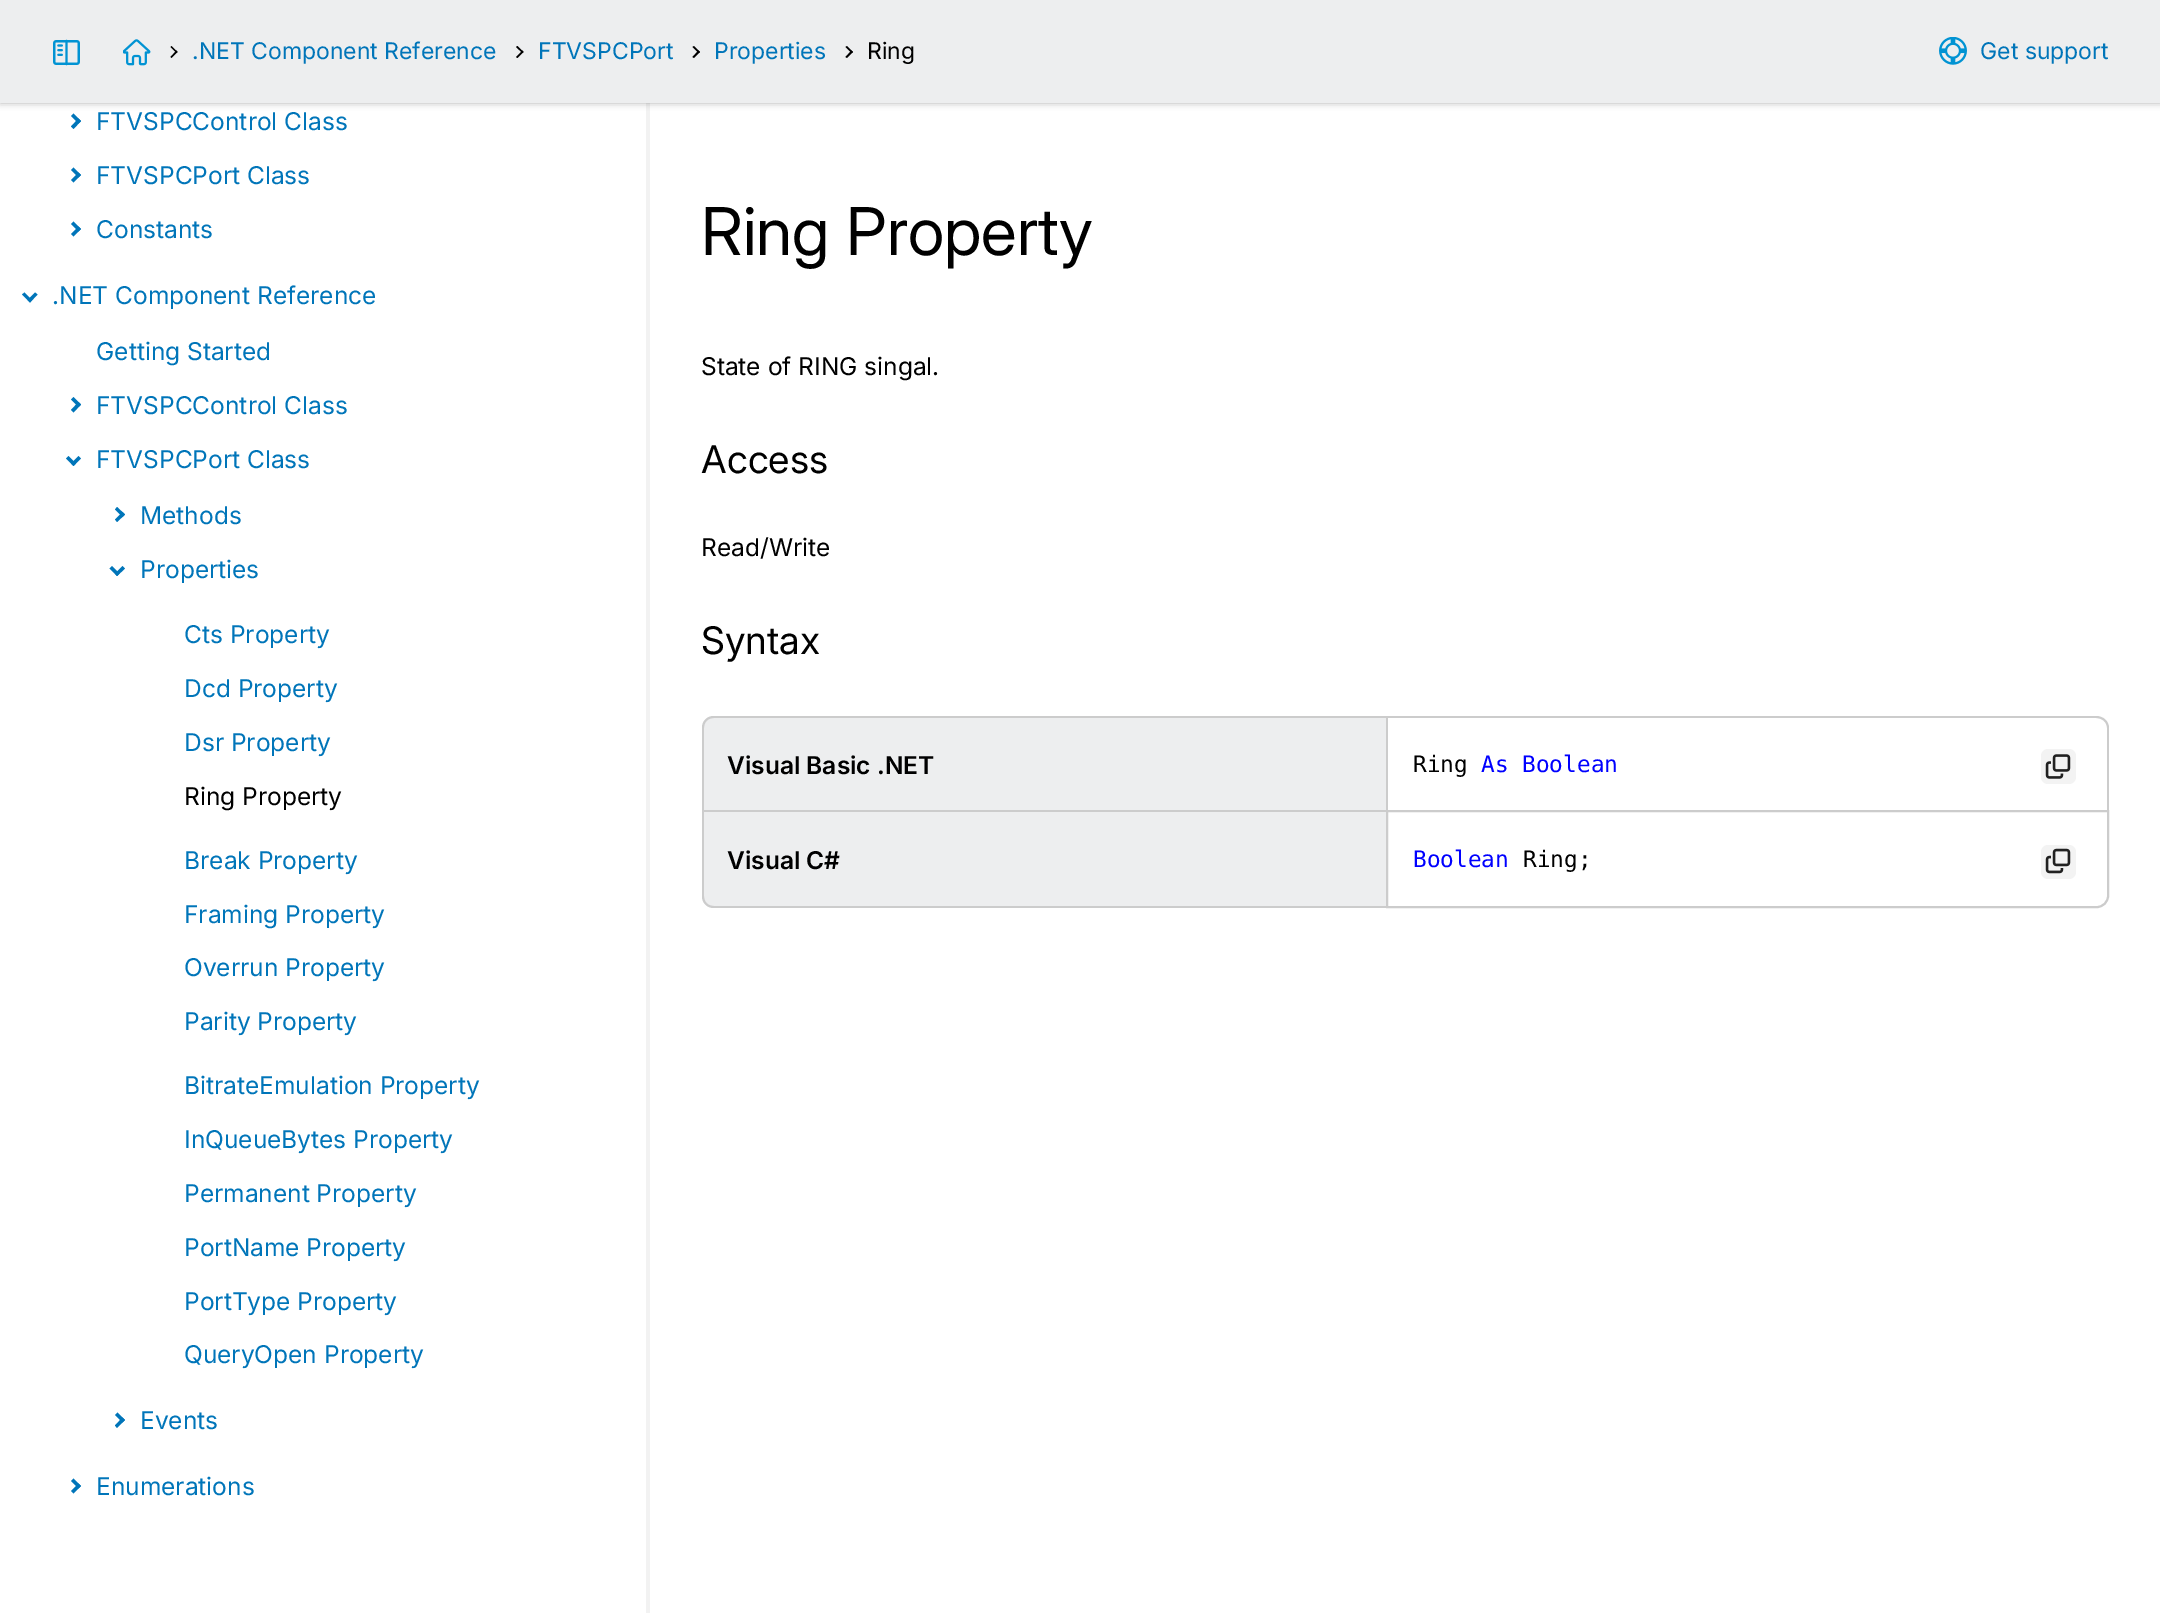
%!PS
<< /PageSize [2160 1613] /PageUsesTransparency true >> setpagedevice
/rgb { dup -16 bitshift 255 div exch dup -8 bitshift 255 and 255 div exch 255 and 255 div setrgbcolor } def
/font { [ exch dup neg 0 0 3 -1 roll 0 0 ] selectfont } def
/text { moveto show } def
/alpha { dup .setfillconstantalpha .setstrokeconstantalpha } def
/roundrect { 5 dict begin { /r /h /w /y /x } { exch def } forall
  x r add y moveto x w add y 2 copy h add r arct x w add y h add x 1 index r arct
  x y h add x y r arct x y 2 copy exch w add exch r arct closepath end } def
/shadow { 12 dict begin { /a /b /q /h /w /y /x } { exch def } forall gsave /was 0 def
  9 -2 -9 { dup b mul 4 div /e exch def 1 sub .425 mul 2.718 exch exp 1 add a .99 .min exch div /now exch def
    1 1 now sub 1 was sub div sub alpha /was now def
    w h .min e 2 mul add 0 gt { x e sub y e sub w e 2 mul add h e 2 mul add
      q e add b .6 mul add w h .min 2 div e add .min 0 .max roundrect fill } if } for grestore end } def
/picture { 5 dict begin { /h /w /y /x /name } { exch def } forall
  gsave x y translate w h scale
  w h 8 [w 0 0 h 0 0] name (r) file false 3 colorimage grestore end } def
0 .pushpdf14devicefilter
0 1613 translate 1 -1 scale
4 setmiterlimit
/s1 { /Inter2-Regular 23 font 16#0075B9 rgb } def
/s2 { /Inter2-Regular 23 font 16#000000 rgb } def
/s3 { /Inter2-Regular 24.5 font 16#0075B9 rgb } def
/s4 { /Inter2-Regular 24.5 font 16#000000 rgb } def
/s5 { /Inter-Regular 66 font 16#000000 rgb } def
/s6 { /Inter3-Regular 38 font 16#000000 rgb } def
/s7 { /Inter-SemiBold 24.5 font 16#000000 rgb } def
/s8 { /DejaVuSansMono-Regular 22.75 font 16#000000 rgb } def
/s9 { /DejaVuSansMono-Regular 22.75 font 16#0000FF rgb } def
16#FFFFFF rgb
0 0 2160 1613 rectfill
16#F2F2F2 rgb
646 103 4 1510 rectfill
16#0075B9 rgb
71 116 moveto 73.5 113.5 lineto 81 121 lineto 78.5 123.5 lineto closepath fill
16#000000 rgb
0 0 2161 103 0 3.5 0.3 shadow
16#EDEEEF rgb
0 0 2160 103 rectfill
(pic1.raw) 53 39 27 27 picture
(pic2.raw) 123 39 28 27 picture
16#000000 rgb
170.5 47 moveto 171.5 46 lineto 177.5 52 lineto 176.5 53 lineto closepath fill
170.5 57 moveto 176.5 50.5 lineto 177.5 52 lineto 171.5 58 lineto closepath fill
s1
(.NET Component Reference) 192 59 text
16#000000 rgb
516 47 moveto 517.5 46 lineto 523.5 52 lineto 522.5 53 lineto closepath fill
516 57 moveto 522.5 50.5 lineto 523.5 52 lineto 517.5 58 lineto closepath fill
s1
(FTVSPCPort) 538 59 text
16#000000 rgb
692.5 47 moveto 694 46 lineto 700 52 lineto 698.5 53 lineto closepath fill
692.5 57 moveto 698.5 50.5 lineto 700 52 lineto 694 58 lineto closepath fill
s1
(Properties) 714 59 text
16#000000 rgb
845.5 47 moveto 847 46 lineto 853 52 lineto 851.5 53 lineto closepath fill
845.5 57 moveto 851.5 50.5 lineto 853 52 lineto 847 58 lineto closepath fill
(Ring) 867 59 text
(pic3.raw) 1939 37 28 28 picture
s1
(Get support) 1980 59 text
71 126.5 moveto 78.5 118.5 lineto 81 121 lineto 73.5 129 lineto closepath fill
s3
(FTVSPCControl Class) 96 130 text
71 170 moveto 73.5 167.5 lineto 81 175 lineto 78.5 177.5 lineto closepath fill
71 180 moveto 78.5 172.5 lineto 81 175 lineto 73.5 182.5 lineto closepath fill
(FTVSPCPort Class) 96 184 text
71 224 moveto 73.5 221.5 lineto 81 229 lineto 78.5 231.5 lineto closepath fill
71 234 moveto 78.5 226.5 lineto 81 229 lineto 73.5 236.5 lineto closepath fill
(Constants) 96 238 text
35 292.5 moveto 37.5 294.5 lineto 30 302.5 lineto 27.5 300 lineto closepath fill
24.5 292.5 moveto 32 300 lineto 30 302.5 lineto 22 294.5 lineto closepath fill
(.NET Component Reference) 52 304 text
(Getting Started) 96 360 text
71 399.5 moveto 73.5 397 lineto 81 404.5 lineto 78.5 407 lineto closepath fill
71 410 moveto 78.5 402 lineto 81 404.5 lineto 73.5 412.5 lineto closepath fill
(FTVSPCControl Class) 96 414 text
78.5 456 moveto 81 458.5 lineto 73.5 466 lineto 71 463.5 lineto closepath fill
68.5 456 moveto 76 463.5 lineto 73.5 466 lineto 66 458.5 lineto closepath fill
(FTVSPCPort Class) 96 468 text
115 509.5 moveto 117 507 lineto 125 514.5 lineto 122.5 517 lineto closepath fill
115 519.5 moveto 122.5 512 lineto 125 514.5 lineto 117 522 lineto closepath fill
(Methods) 140 524 text
122.5 566 moveto 125 568.5 lineto 117 576 lineto 115 573.5 lineto closepath fill
112 566 moveto 119.5 573.5 lineto 117 576 lineto 109.5 568.5 lineto closepath fill
(Properties) 140 578 text
(Cts Property) 184 643 text
(Dcd Property) 184 697 text
(Dsr Property) 184 751 text
s4
(Ring Property) 184 805 text
s3
(Break Property) 184 869 text
(Framing Property) 184 923 text
(Overrun Property) 184 976 text
(Parity Property) 184 1030 text
(BitrateEmulation Property) 184 1094 text
(InQueueBytes Property) 184 1148 text
(Permanent Property) 184 1202 text
(PortName Property) 184 1256 text
(PortType Property) 184 1310 text
(QueryOpen Property) 184 1363 text
115 1415 moveto 117.5 1412.5 lineto 125 1420 lineto 122.5 1422.5 lineto closepath fill
115 1425.5 moveto 122.5 1417.5 lineto 125 1420 lineto 117 1428 lineto closepath fill
(Events) 140 1429 text
71 1481 moveto 73.5 1478.5 lineto 81 1486 lineto 78.5 1488.5 lineto closepath fill
71 1491 moveto 78.5 1483.5 lineto 81 1486 lineto 73.5 1493.5 lineto closepath fill
(Enumerations) 96 1495 text
s5
(Ring Property) 701 255 text
s4
(State of RING singal.) 701 375 text
s6
(Access) 701 473 text
s4
(Read/Write) 701 556 text
s6
(Syntax) 701 654 text
16#EDEEEF rgb
714 716 moveto 1386 716 lineto 1386 810 lineto 702 810 lineto 702 728 lineto 702 721.5 707.5 716 714 716 curveto closepath fill
16#CCCCCC rgb
714 716 moveto 1386 716 lineto 1386 810 lineto 702 810 lineto 702 728 lineto 702 721 707 716 714 716 curveto closepath 714 718 moveto 1386 718 lineto 1386 810 lineto 704 810 lineto 704 728 lineto 704 722 708 718 714 718 curveto closepath eofill
s7
(Visual Basic .NET) 727 774 text
16#CCCCCC rgb
1386 716 moveto 2096 716 lineto 2103 716 2109 721 2109 728 curveto 2109 810 lineto 1386 810 lineto closepath 1388 718 moveto 2096 718 lineto 2102 718 2107 722 2107 728 curveto 2107 810 lineto 1388 810 lineto closepath eofill
s8
(Ring) 1413 772 text
s9
(As Boolean) 1481 772 text
16#F3F3F3 rgb
2041 749 35 35 7 roundrect fill
(pic4.raw) 2045 754 26 25 picture
16#EDEEEF rgb
702 810 moveto 1386 810 lineto 1386 908 lineto 714 908 lineto 707.5 908 702 902.5 702 896 curveto closepath fill
16#CCCCCC rgb
702 810 moveto 1386 810 lineto 1386 908 lineto 714 908 lineto 707 908 702 903 702 896 curveto closepath 704 812 moveto 1386 812 lineto 1386 906 lineto 714 906 lineto 708 906 704 902 704 896 curveto closepath eofill
s7
(Visual C#) 727 869 text
16#CCCCCC rgb
2 setlinewidth
1387 811 moveto 2108 811 lineto 2108 896 lineto 2108 902 2103 907 2097 907 curveto 1387 907 lineto closepath stroke
s9
(Boolean) 1413 867 text
s8
(Ring;) 1523 867 text
16#F3F3F3 rgb
2041 845 35 34 7 roundrect fill
(pic5.raw) 2045 848 26 26 picture
.poppdf14devicefilter showpage
